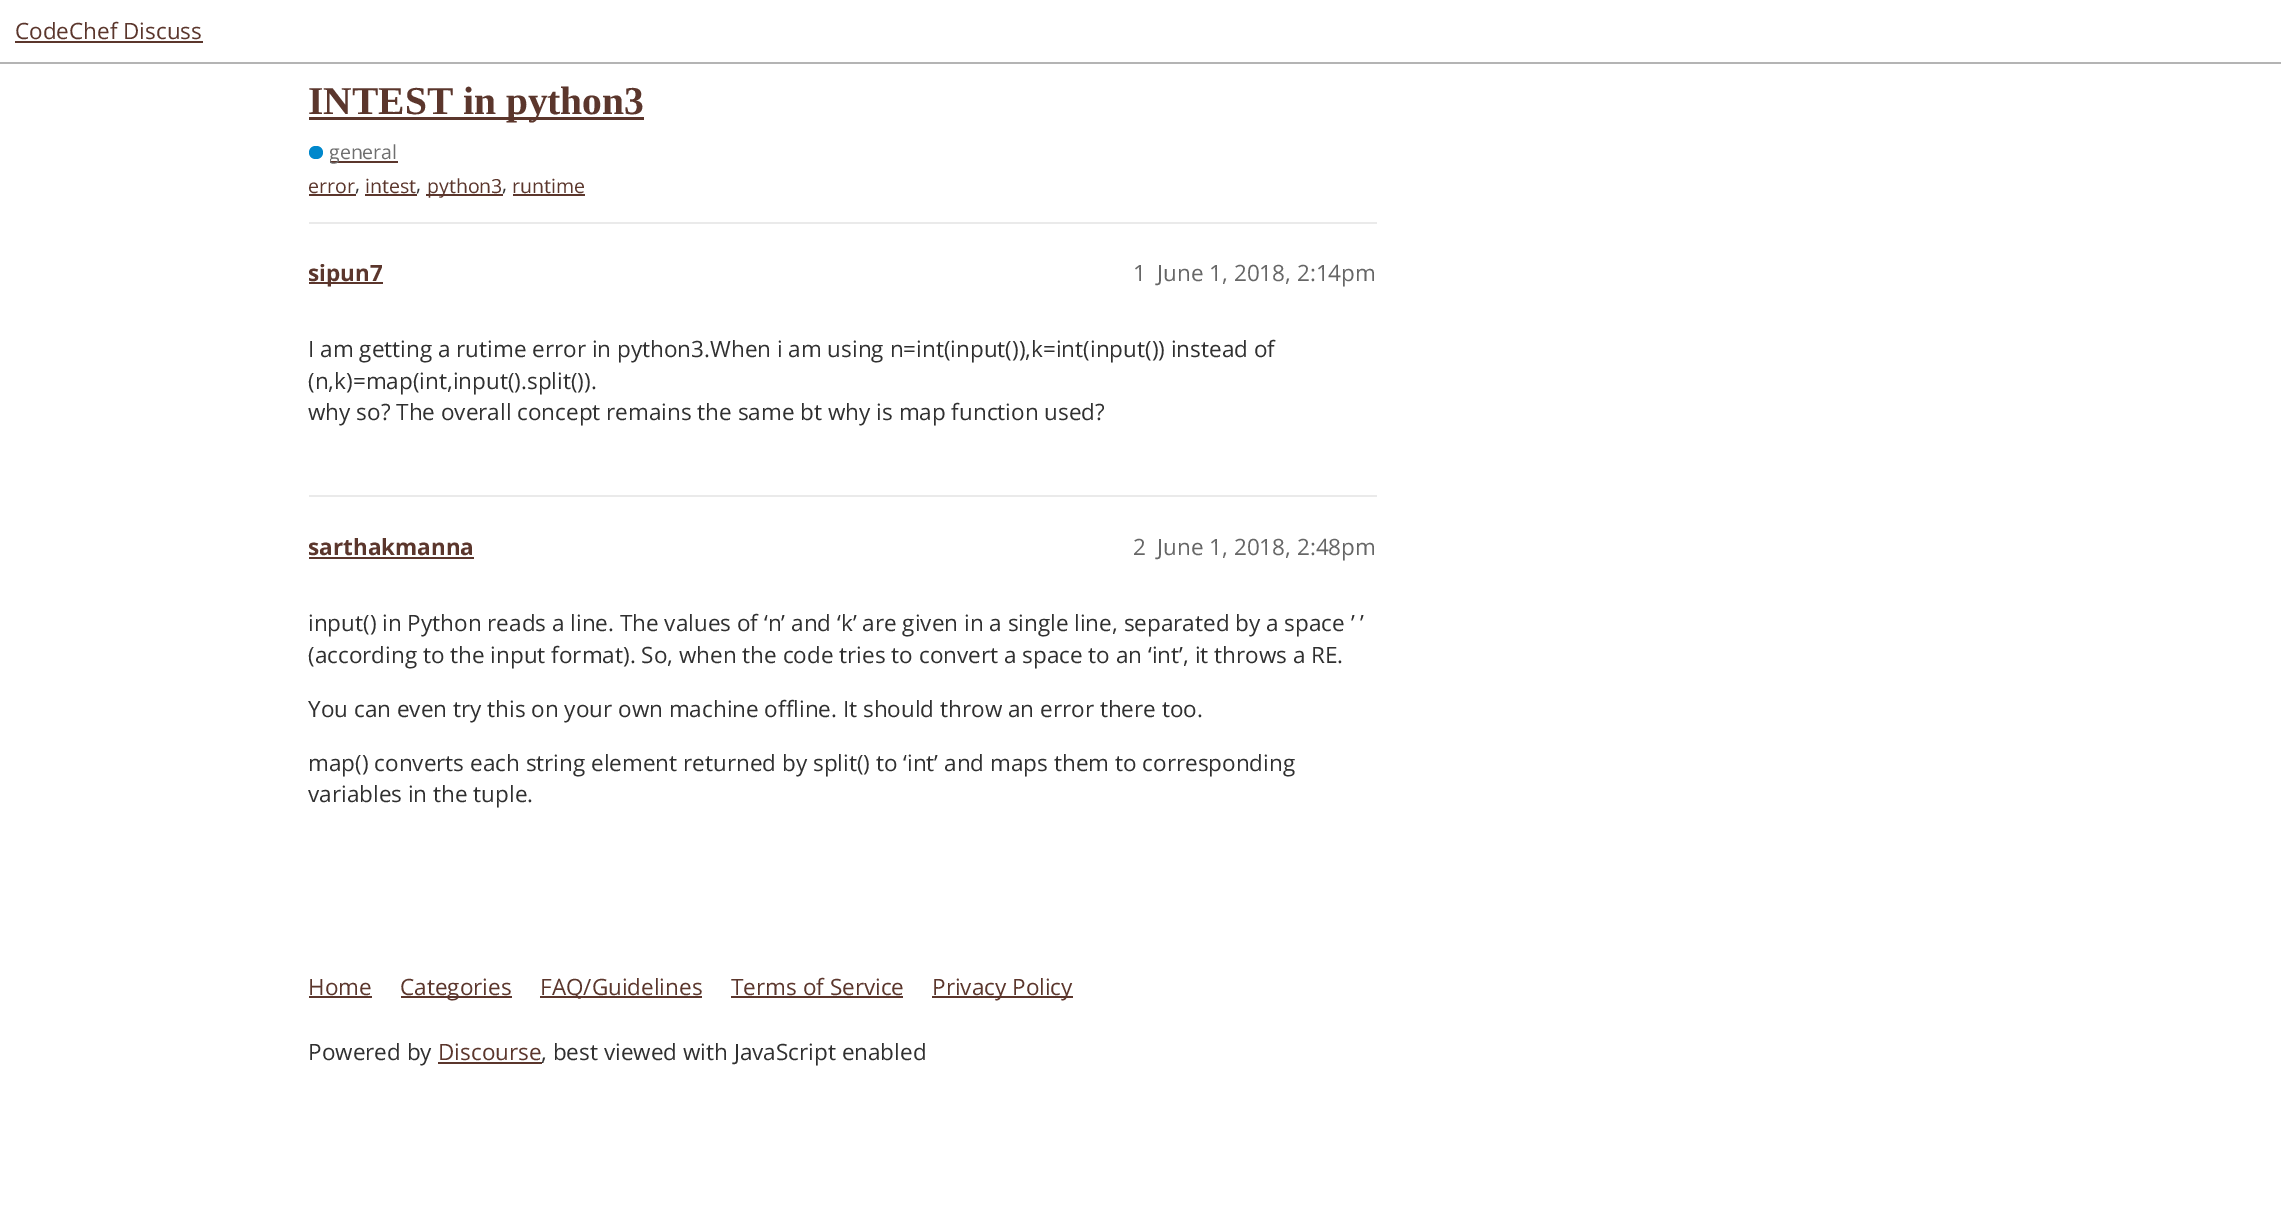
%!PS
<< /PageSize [2281 1215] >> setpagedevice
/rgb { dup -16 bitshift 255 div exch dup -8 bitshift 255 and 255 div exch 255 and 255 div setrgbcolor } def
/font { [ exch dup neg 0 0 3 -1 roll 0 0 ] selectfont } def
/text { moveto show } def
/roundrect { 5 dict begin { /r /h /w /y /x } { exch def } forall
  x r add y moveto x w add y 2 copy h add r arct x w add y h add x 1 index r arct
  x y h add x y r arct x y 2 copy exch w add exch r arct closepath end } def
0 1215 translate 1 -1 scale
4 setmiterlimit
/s1 { /OpenSans-Regular 22.5 font 16#5B362C rgb } def
/s2 { /LiberationSerif-Bold 39.5 font 16#5B362C rgb } def
/s3 { /OpenSans-Regular 19.5 font 16#6E6E6E rgb } def
/s4 { /OpenSans-Regular 19.5 font 16#5B362C rgb } def
/s5 { /OpenSans-Regular 19.5 font 16#303030 rgb } def
/s6 { /OpenSans-Bold 22.5 font 16#5B362C rgb } def
/s7 { /OpenSans-Regular 22.5 font 16#666666 rgb } def
/s8 { /OpenSans-Regular 22.5 font 16#303030 rgb } def
16#FFFFFF rgb
0 0 2281 1215 rectfill
16#B4B4B4 rgb
0 62 2281 2 rectfill
s1
(CodeChef Discuss) 15 39 text
15 41 188 2 rectfill
309 117 335 3 rectfill
s2
(INTEST in python3) 308 114 text
16#0088CC rgb
309 146 14 13 6.5 roundrect fill
16#5B362C rgb
330 161 68 2 rectfill
gsave
330 138 68 27 rectclip
s3
(general) 329 159 text
grestore
s4
(error) 308 193 text
309 194 47 2 rectfill
s5
(,) 355 191 text
s4
(intest) 365 193 text
365 194 52 2 rectfill
s5
(,) 416 191 text
16#5B362C rgb
426 194 77 2 rectfill
(python3) 427 193 text
s5
(,) 502 191 text
s4
(runtime) 512 193 text
513 194 72 2 rectfill
16#EAEAEA rgb
309 222 1068 2 rectfill
16#5B362C rgb
309 282 74 2 rectfill
s6
(sipun7) 308 281 text
s7
(1) 1133 281 text
(June 1, 2018, 2:14pm) 1157 281 text
s8
(I am getting a rutime error in python3.When i am using n=int\(input\(\)\),k=int\(input\(\)\) instead of) 308 357 text
(\(n,k\)=map\(int,input\(\).split\(\)\).) 308 389 text
(why so? The overall concept remains the same bt why is map function used?) 308 420 text
16#EAEAEA rgb
309 495 1068 2 rectfill
s6
(sarthakmanna) 308 555 text
309 557 165 2 rectfill
s7
(2) 1133 555 text
(June 1, 2018, 2:48pm) 1157 555 text
s8
(input\(\) in Python reads a line. The values of ‘n’ and ‘k’ are given in a single line, separated by a space ’ ’) 308 631 text
(\(according to the input format\). So, when the code tries to convert a space to an ‘int’, it throws a RE.) 308 663 text
(You can even try this on your own machine offline. It should throw an error there too.) 308 717 text
(map\(\) converts each string element returned by split\(\) to ‘int’ and maps them to corresponding) 308 771 text
(variables in the tuple.) 308 802 text
s1
(Home) 308 995 text
309 996 63 2 rectfill
401 996 111 2 rectfill
(Categories) 400 995 text
540 996 162 2 rectfill
(FAQ/Guidelines) 540 995 text
(Terms of Service) 731 995 text
731 996 172 2 rectfill
932 996 141 2 rectfill
(Privacy Policy) 932 995 text
s8
(Powered by) 308 1060 text
s1
(Discourse) 438 1060 text
438 1062 104 2 rectfill
s8
(, best viewed with JavaScript enabled) 541 1060 text
showpage
